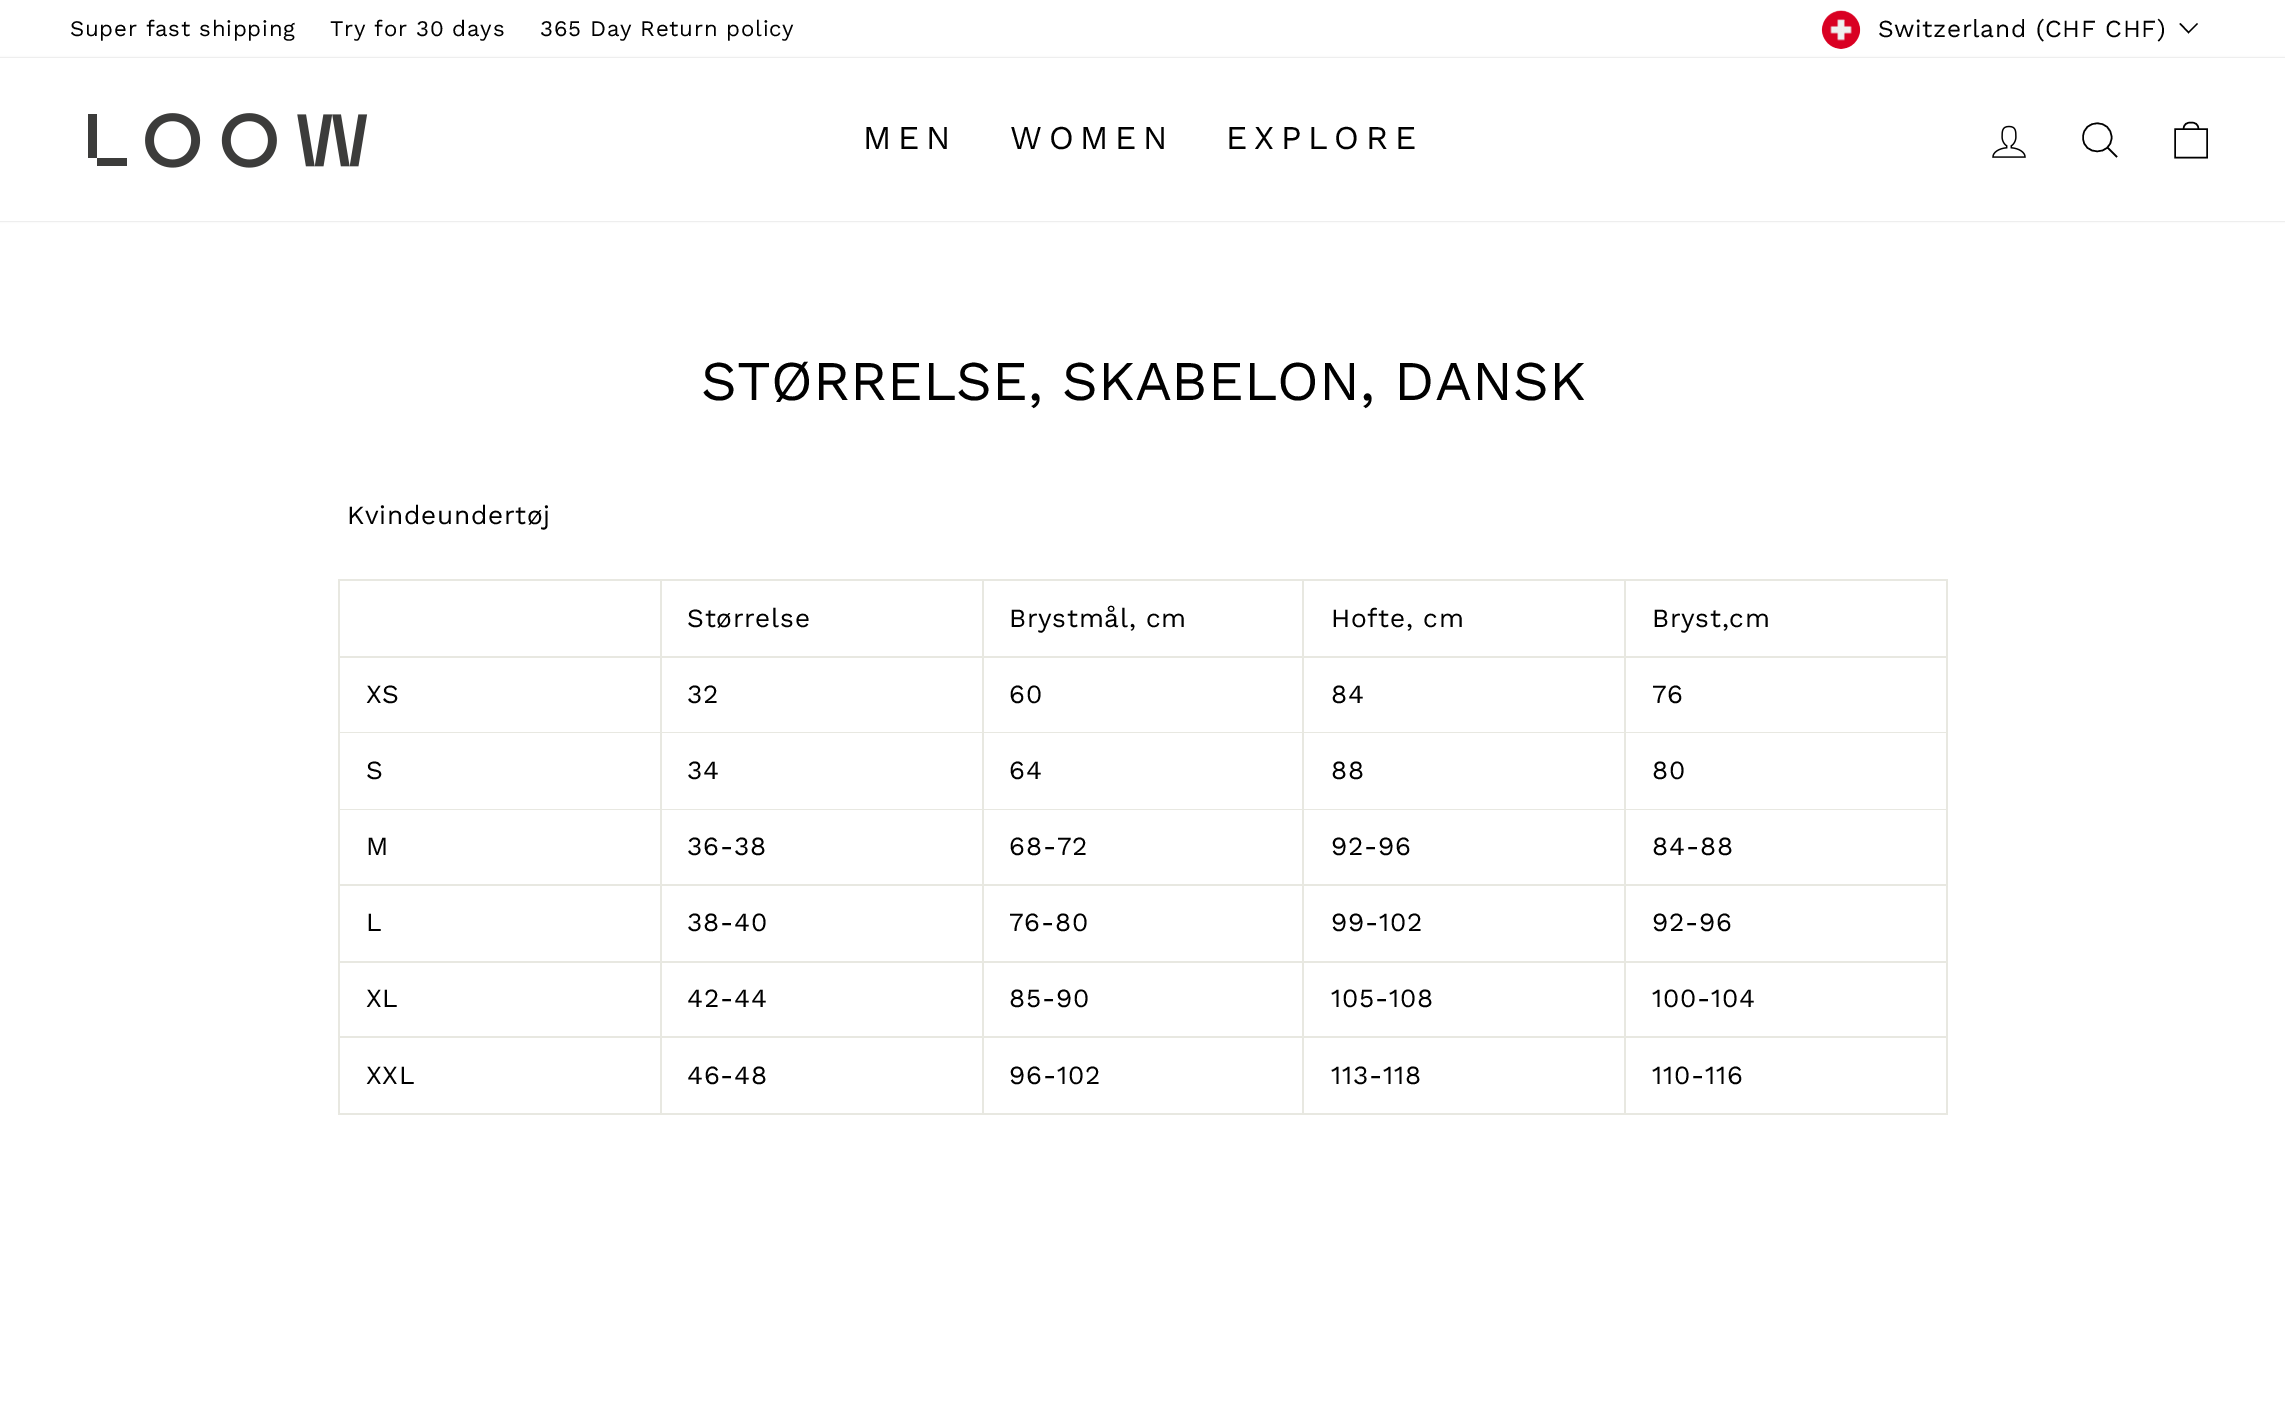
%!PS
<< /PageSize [2285 1416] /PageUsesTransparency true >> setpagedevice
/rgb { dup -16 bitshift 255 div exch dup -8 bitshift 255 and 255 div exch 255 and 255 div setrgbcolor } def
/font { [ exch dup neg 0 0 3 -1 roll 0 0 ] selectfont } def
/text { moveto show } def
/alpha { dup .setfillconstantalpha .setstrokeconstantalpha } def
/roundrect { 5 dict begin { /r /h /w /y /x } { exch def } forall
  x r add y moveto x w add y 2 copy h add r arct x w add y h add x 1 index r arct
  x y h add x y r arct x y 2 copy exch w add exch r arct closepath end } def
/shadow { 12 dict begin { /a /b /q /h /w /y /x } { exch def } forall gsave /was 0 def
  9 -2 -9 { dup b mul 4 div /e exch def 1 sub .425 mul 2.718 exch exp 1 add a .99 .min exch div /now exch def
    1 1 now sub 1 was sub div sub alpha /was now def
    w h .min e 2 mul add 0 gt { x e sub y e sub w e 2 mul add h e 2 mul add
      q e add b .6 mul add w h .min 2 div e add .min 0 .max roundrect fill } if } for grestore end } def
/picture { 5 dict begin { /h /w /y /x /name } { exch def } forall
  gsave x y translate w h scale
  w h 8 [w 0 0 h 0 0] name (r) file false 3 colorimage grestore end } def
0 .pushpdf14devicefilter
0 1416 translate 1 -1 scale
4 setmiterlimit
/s1 { /WorkSans-Regular 56 font 16#000000 rgb } def
16#FFFFFF rgb
0 0 2285 1416 rectfill
/WorkSans-Regular 22.25 font
16#000000 rgb
70 36 moveto 0.7 0 (Super fast shipping) ashow
330 36 moveto 0.7 0 (Try for 30 days) ashow
540 36 moveto 0.7 0 (365 Day Return policy) ashow
(pic1.raw) 1821 10 40 39 picture
/WorkSans-Regular 24.5 font
1878 37 moveto 0.6 0 (Switzerland \(CHF CHF\)) ashow
1.4 setlinewidth
2180 23.5 moveto 2188.5 32.5 lineto 2197.5 23.5 lineto stroke
0 58 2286 163 0 1 0.2 shadow
16#FFFFFF rgb
0 58 2285 163 rectfill
(pic2.raw) 88 113 280 55 picture
/WorkSans-Regular 33.25 font
16#000000 rgb
863 149 moveto 6.75 0 (MEN) ashow
1010 149 moveto 6.75 0 (WOMEN) ashow
1226 149 moveto 6.75 0 (EXPLORE) ashow
(pic3.raw) 1992 125 34 33 picture
1.5 setlinewidth
2111.5 137.5 moveto 2111.5 156 2083 156 2083 137.5 curveto 2083 118.5 2111.5 118.5 2111.5 137.5 curveto closepath 2117 157 moveto 2107.5 147.5 lineto stroke
2175 129 moveto 2207 129 lineto 2207 157.5 lineto 2175 157.5 lineto closepath 2183.5 129.5 moveto 2183.5 124 2187 122.5 2191 122.5 curveto 2195 122.5 2198.5 124 2198.5 129.5 curveto stroke
s1
(STØRRELSE, SKABELON, DANSK) 701 400 text
/WorkSans-Regular 26.25 font
347 524 moveto 0.7 0 (Kvindeundertøj) ashow
16#E8E8E1 rgb
338 579 1610 536 rectfill
16#FFFFFF rgb
340 581 320 75 rectfill
662 581 320 75 rectfill
16#000000 rgb
687 627 moveto 0.7 0 (Størrelse) ashow
16#FFFFFF rgb
984 581 318 75 rectfill
16#000000 rgb
1009 627 moveto 0.7 0 (Brystmål, cm) ashow
16#FFFFFF rgb
1304 581 320 75 rectfill
16#000000 rgb
1331 627 moveto 0.7 0 (Hofte, cm) ashow
16#FFFFFF rgb
1626 581 320 75 rectfill
16#000000 rgb
1652 627 moveto 0.7 0 (Bryst,cm) ashow
16#FFFFFF rgb
340 658 320 74 rectfill
16#000000 rgb
366 703 moveto 0.7 0 (XS) ashow
16#FFFFFF rgb
662 658 320 74 rectfill
16#000000 rgb
687 703 moveto 0.7 0 (32) ashow
16#FFFFFF rgb
984 658 318 74 rectfill
16#000000 rgb
1009 703 moveto 0.7 0 (60) ashow
16#FFFFFF rgb
1304 658 320 74 rectfill
16#000000 rgb
1331 703 moveto 0.7 0 (84) ashow
16#FFFFFF rgb
1626 658 320 74 rectfill
16#000000 rgb
1652 703 moveto 0.7 0 (76) ashow
16#FFFFFF rgb
340 733 320 76 rectfill
16#000000 rgb
366 779 moveto 0.7 0 (S) ashow
16#FFFFFF rgb
662 733 320 76 rectfill
16#000000 rgb
687 779 moveto 0.7 0 (34) ashow
16#FFFFFF rgb
984 733 318 76 rectfill
16#000000 rgb
1009 779 moveto 0.7 0 (64) ashow
16#FFFFFF rgb
1304 733 320 76 rectfill
16#000000 rgb
1331 779 moveto 0.7 0 (88) ashow
16#FFFFFF rgb
1626 733 320 76 rectfill
16#000000 rgb
1652 779 moveto 0.7 0 (80) ashow
16#FFFFFF rgb
340 810 320 74 rectfill
16#000000 rgb
366 855 moveto 0.7 0 (M) ashow
16#FFFFFF rgb
662 810 320 74 rectfill
16#000000 rgb
687 855 moveto 0.7 0 (36-38) ashow
16#FFFFFF rgb
984 810 318 74 rectfill
16#000000 rgb
1009 855 moveto 0.7 0 (68-72) ashow
16#FFFFFF rgb
1304 810 320 74 rectfill
16#000000 rgb
1331 855 moveto 0.7 0 (92-96) ashow
16#FFFFFF rgb
1626 810 320 74 rectfill
16#000000 rgb
1652 855 moveto 0.7 0 (84-88) ashow
16#FFFFFF rgb
340 886 320 75 rectfill
16#000000 rgb
366 931 moveto 0.7 0 (L) ashow
16#FFFFFF rgb
662 886 320 75 rectfill
16#000000 rgb
687 931 moveto 0.7 0 (38-40) ashow
16#FFFFFF rgb
984 886 318 75 rectfill
16#000000 rgb
1009 931 moveto 0.7 0 (76-80) ashow
16#FFFFFF rgb
1304 886 320 75 rectfill
16#000000 rgb
1331 931 moveto 0.7 0 (99-102) ashow
16#FFFFFF rgb
1626 886 320 75 rectfill
16#000000 rgb
1652 931 moveto 0.7 0 (92-96) ashow
16#FFFFFF rgb
340 963 320 73 rectfill
16#000000 rgb
366 1007 moveto 0.7 0 (XL) ashow
16#FFFFFF rgb
662 963 320 73 rectfill
16#000000 rgb
687 1007 moveto 0.7 0 (42-44) ashow
16#FFFFFF rgb
984 963 318 73 rectfill
16#000000 rgb
1009 1007 moveto 0.7 0 (85-90) ashow
16#FFFFFF rgb
1304 963 320 73 rectfill
16#000000 rgb
1331 1007 moveto 0.7 0 (105-108) ashow
16#FFFFFF rgb
1626 963 320 73 rectfill
16#000000 rgb
1652 1007 moveto 0.7 0 (100-104) ashow
16#FFFFFF rgb
340 1038 320 75 rectfill
16#000000 rgb
366 1084 moveto 0.7 0 (XXL) ashow
16#FFFFFF rgb
662 1038 320 75 rectfill
16#000000 rgb
687 1084 moveto 0.7 0 (46-48) ashow
16#FFFFFF rgb
984 1038 318 75 rectfill
16#000000 rgb
1009 1084 moveto 0.7 0 (96-102) ashow
16#FFFFFF rgb
1304 1038 320 75 rectfill
16#000000 rgb
1331 1084 moveto 0.7 0 (113-118) ashow
16#FFFFFF rgb
1626 1038 320 75 rectfill
16#000000 rgb
1652 1084 moveto 0.7 0 (110-116) ashow
.poppdf14devicefilter showpage
